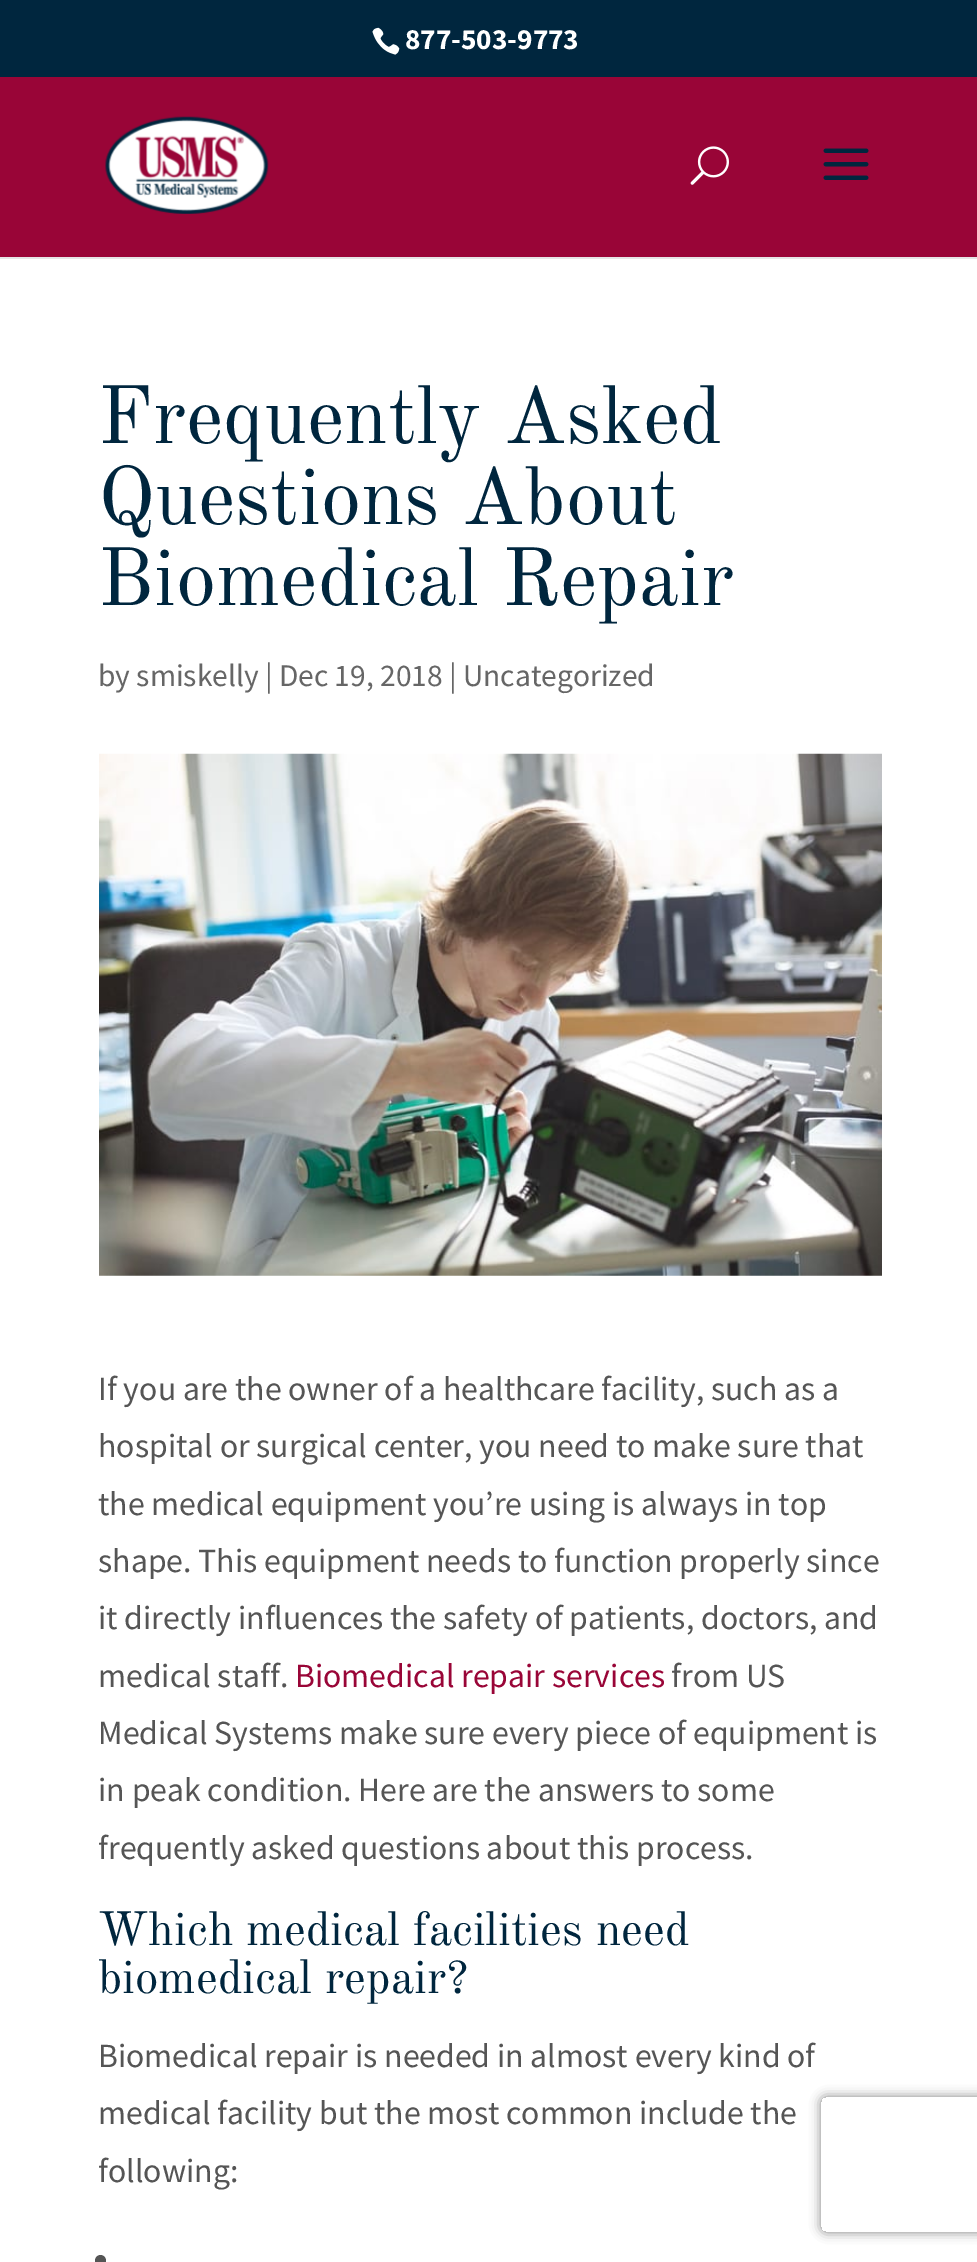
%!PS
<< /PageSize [977 2262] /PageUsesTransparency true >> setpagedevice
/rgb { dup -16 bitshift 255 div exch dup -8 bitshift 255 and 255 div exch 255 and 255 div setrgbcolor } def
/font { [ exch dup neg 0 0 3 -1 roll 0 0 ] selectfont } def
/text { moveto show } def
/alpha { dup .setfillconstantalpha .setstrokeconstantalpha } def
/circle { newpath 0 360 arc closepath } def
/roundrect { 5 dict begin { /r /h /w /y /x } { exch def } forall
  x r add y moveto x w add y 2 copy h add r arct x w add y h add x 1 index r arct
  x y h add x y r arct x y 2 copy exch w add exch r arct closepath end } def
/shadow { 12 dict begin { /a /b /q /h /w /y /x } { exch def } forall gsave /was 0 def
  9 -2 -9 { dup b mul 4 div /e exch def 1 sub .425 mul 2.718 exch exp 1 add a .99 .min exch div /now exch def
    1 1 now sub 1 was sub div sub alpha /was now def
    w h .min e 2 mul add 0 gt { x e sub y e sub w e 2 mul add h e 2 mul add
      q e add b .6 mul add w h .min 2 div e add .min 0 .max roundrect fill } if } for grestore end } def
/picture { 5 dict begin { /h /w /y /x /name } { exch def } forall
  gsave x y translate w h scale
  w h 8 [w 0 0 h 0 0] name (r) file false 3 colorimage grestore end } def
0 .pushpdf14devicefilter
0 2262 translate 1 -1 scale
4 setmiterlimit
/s1 { /SourceSansPro-Bold 29.25 font 16#FFFFFF rgb } def
/s2 { /OldStandardTT-Regular 81 font 16#00263E rgb } def
/s3 { /SourceSansPro-Regular 31.5 font 16#666666 rgb } def
/s4 { /SourceSansPro-Regular 33.75 font 16#555555 rgb } def
/s5 { /SourceSansPro-Regular 33.75 font 16#990537 rgb } def
/s6 { /OldStandardTT-Regular 47.25 font 16#00263E rgb } def
16#FFFFFF rgb
0 0 977 2262 rectfill
16#00263E rgb
0 0 977 77 rectfill
(pic1.raw) 372 27 28 28 picture
s1
(877-503-9773) 405 49 text
16#E6E6E6 rgb
0 256 moveto 0 259 lineto 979 259 lineto 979 79 lineto 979 256 lineto closepath fill
16#990537 rgb
0 77 977 180 rectfill
(pic2.raw) 105 116 164 98 picture
(pic3.raw) 690 146 39 39 picture
(pic4.raw) 823 148 46 32 picture
s2
(Frequently Asked) 98 443 text
(Questions About) 98 524 text
(Biomedical Repair) 98 605 text
s3
(by smiskelly | Dec 19, 2018 | Uncategorized) 98 686 text
(pic5.raw) 99 753 783 523 picture
s4
(If you are the owner of a healthcare facility, such as a) 98 1400 text
(hospital or surgical center, you need to make sure that) 98 1457 text
(the medical equipment you’re using is always in top) 98 1515 text
(shape. This equipment needs to function properly since) 98 1572 text
(it directly influences the safety of patients, doctors, and) 98 1629 text
(medical staff.) 98 1687 text
s5
(Biomedical repair services) 295 1687 text
s4
(from US) 671 1687 text
(Medical Systems make sure every piece of equipment is) 98 1744 text
(in peak condition. Here are the answers to some) 98 1801 text
(frequently asked questions about this process.) 98 1859 text
s6
(Which medical facilities need) 98 1945 text
(biomedical repair?) 98 1993 text
s4
(Biomedical repair is needed in almost every kind of) 98 2067 text
(medical facility but the most common include the) 98 2124 text
(following:) 98 2182 text
100.5 2260.5 5.5 circle fill
gsave
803 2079 moveto 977 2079 lineto 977 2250 lineto 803 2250 lineto closepath 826 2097 moveto 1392 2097 lineto 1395 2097 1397 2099 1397 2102 curveto 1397 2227 lineto 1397 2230 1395 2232 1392 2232 curveto 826 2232 lineto 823 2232 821 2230 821 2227 curveto 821 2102 lineto 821 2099 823 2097 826 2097 curveto closepath eoclip newpath
16#808080 rgb
821 2097 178 135 5 5.5 1 shadow
grestore
.poppdf14devicefilter showpage
